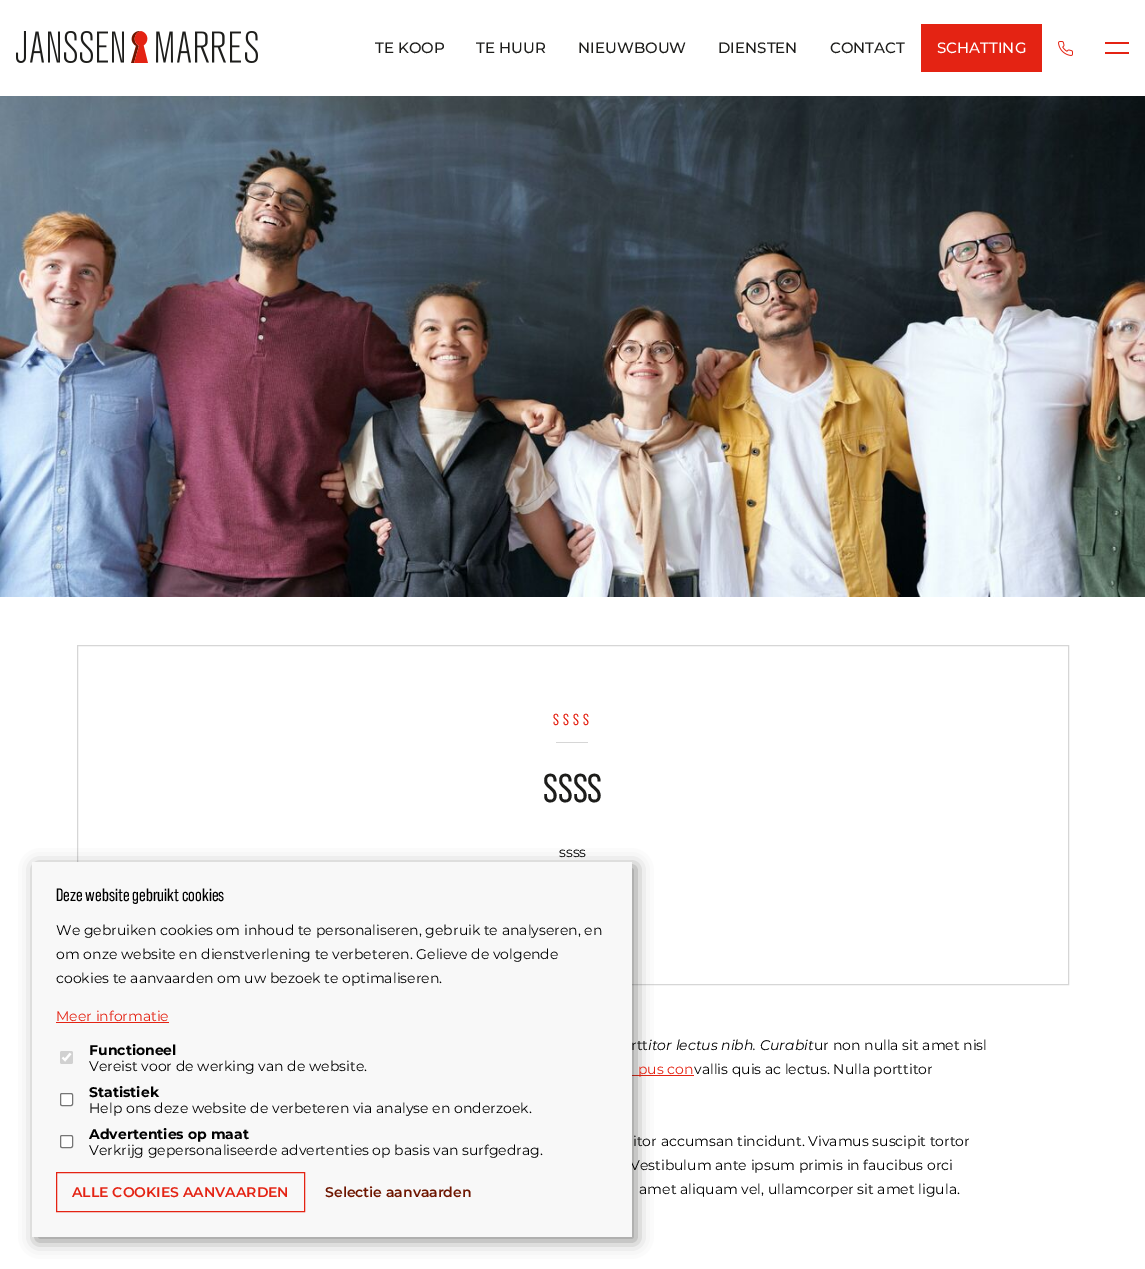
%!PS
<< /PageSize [1145 1269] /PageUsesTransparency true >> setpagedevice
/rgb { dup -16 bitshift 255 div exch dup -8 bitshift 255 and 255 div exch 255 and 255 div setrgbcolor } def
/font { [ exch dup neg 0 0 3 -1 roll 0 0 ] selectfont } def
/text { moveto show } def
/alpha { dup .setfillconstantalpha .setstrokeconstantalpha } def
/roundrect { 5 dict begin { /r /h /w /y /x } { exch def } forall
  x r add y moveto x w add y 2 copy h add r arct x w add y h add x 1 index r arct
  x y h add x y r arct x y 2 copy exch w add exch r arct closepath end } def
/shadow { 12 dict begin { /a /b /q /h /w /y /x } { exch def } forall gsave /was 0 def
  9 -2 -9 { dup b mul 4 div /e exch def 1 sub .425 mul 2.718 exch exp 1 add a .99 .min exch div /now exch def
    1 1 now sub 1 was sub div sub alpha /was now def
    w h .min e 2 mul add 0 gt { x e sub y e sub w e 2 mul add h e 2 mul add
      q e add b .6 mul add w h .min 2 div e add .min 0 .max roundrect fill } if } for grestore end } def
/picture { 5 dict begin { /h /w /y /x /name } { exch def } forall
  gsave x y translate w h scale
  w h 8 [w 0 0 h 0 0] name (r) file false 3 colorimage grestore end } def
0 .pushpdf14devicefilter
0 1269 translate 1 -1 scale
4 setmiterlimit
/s1 { /Montserrat-Medium 15 font 16#1D1D1B rgb } def
/s2 { /Montserrat-Medium 15 font 16#FFFFFF rgb } def
/s3 { /Montserrat-Regular 14 font 16#000000 rgb } def
/s4 { /BebasNeue-Regular 18 font 16#000000 rgb } def
/s5 { /Montserrat-Regular 14 font 16#E42313 rgb } def
/s6 { /Montserrat-Bold 14 font 16#000000 rgb } def
/s7 { /Montserrat-SemiBold 14 font 16#E42313 rgb } def
/s8 { /Montserrat-SemiBold 14 font 16#6E1600 rgb } def
/s9 { /BebasNeue-Regular 40 font 16#1D1D1B rgb } def
/s10 { /Montserrat-Italic 14 font 16#000000 rgb } def
16#FFFFFF rgb
0 0 1145 1269 rectfill
(pic1.raw) 16 31 242 32 picture
s1
(TE KOOP) 375 53 text
(TE HUUR) 476 53 text
(NIEUWBOUW) 578 53 text
(DIENSTEN) 718 53 text
(CONTACT) 830 53 text
16#E42313 rgb
921 24 121 48 rectfill
s2
(SCHATTING) 937 53 text
(pic2.raw) 1058 41 15 15 picture
16#E42313 rgb
1105 42 24 2 rectfill
1105 52 24 2 rectfill
16#D6D6D6 rgb
77.5 645.5 991 339 rectstroke
s3
(vallis quis ac lectus. Nulla porttitor) 694 1074 text
16#E42313 rgb
632 1075 62 1 rectfill
16#1D1D1B rgb
36 866 600 375 0 8 0.5 shadow
s3
(Vestibulum ante ipsum primis in faucibus orci) 630 1170 text
16#F8F8F8 rgb
32 862 600 375 rectfill
s4
(Deze website gebruikt cookies) 56 901 text
s3
(We gebruiken cookies om inhoud te personaliseren, gebruik te analyseren, en) 56 935 text
(om onze website en dienstverlening te verbeteren. Gelieve de volgende) 56 959 text
(cookies te aanvaarden om uw bezoek te optimaliseren.) 56 983 text
s5
(Meer informatie) 56 1021 text
56 1022 113 1 rectfill
16#D1D1D1 rgb
60 1051 13 13 2 roundrect fill
16#FFFFFF rgb
2.1 setlinewidth
62.5 1057.5 moveto 65 1060 lineto 70.5 1053.5 lineto stroke
s6
(Functioneel) 89 1055 text
s3
(Vereist voor de werking van de website.) 89 1071 text
16#FFFFFF rgb
60.5 1093.5 12 12 1.5 roundrect gsave fill grestore
16#767676 rgb
1 setlinewidth
stroke
s6
(Statistiek) 89 1097 text
s3
(Help ons deze website de verbeteren via analyse en onderzoek.) 89 1113 text
16#FFFFFF rgb
60.5 1135.5 12 12 1.5 roundrect gsave fill grestore
16#767676 rgb
stroke
s6
(Advertenties op maat) 89 1139 text
s3
(Verkrijg gepersonaliseerde advertenties op basis van surfgedrag.) 89 1155 text
16#E42313 rgb
56.5 1172.5 248 39 rectstroke
s7
(ALLE COOKIES AANVAARDEN) 72 1197 text
s8
(Selectie aanvaarden) 325 1197 text
(pic3.raw) 0 96 1145 501 picture
/BebasNeue-Regular 16 font
16#E42313 rgb
553 725 moveto 4 0 (SSSS) ashow
16#D6D6D6 rgb
556 742 32 1 rectfill
s9
(SSSS) 543 802 text
s3
(ssss) 559 857 text
(rtt) 631 1050 text
s10
(itor lectus nibh. Curabit) 648 1050 text
s3
(ur non nulla sit amet nisl) 814 1050 text
s5
(pus con) 638 1074 text
s3
(itor accumsan tincidunt. Vivamus suscipit tortor) 633 1146 text
(amet aliquam vel, ullamcorper sit amet ligula.) 639 1194 text
.poppdf14devicefilter showpage
